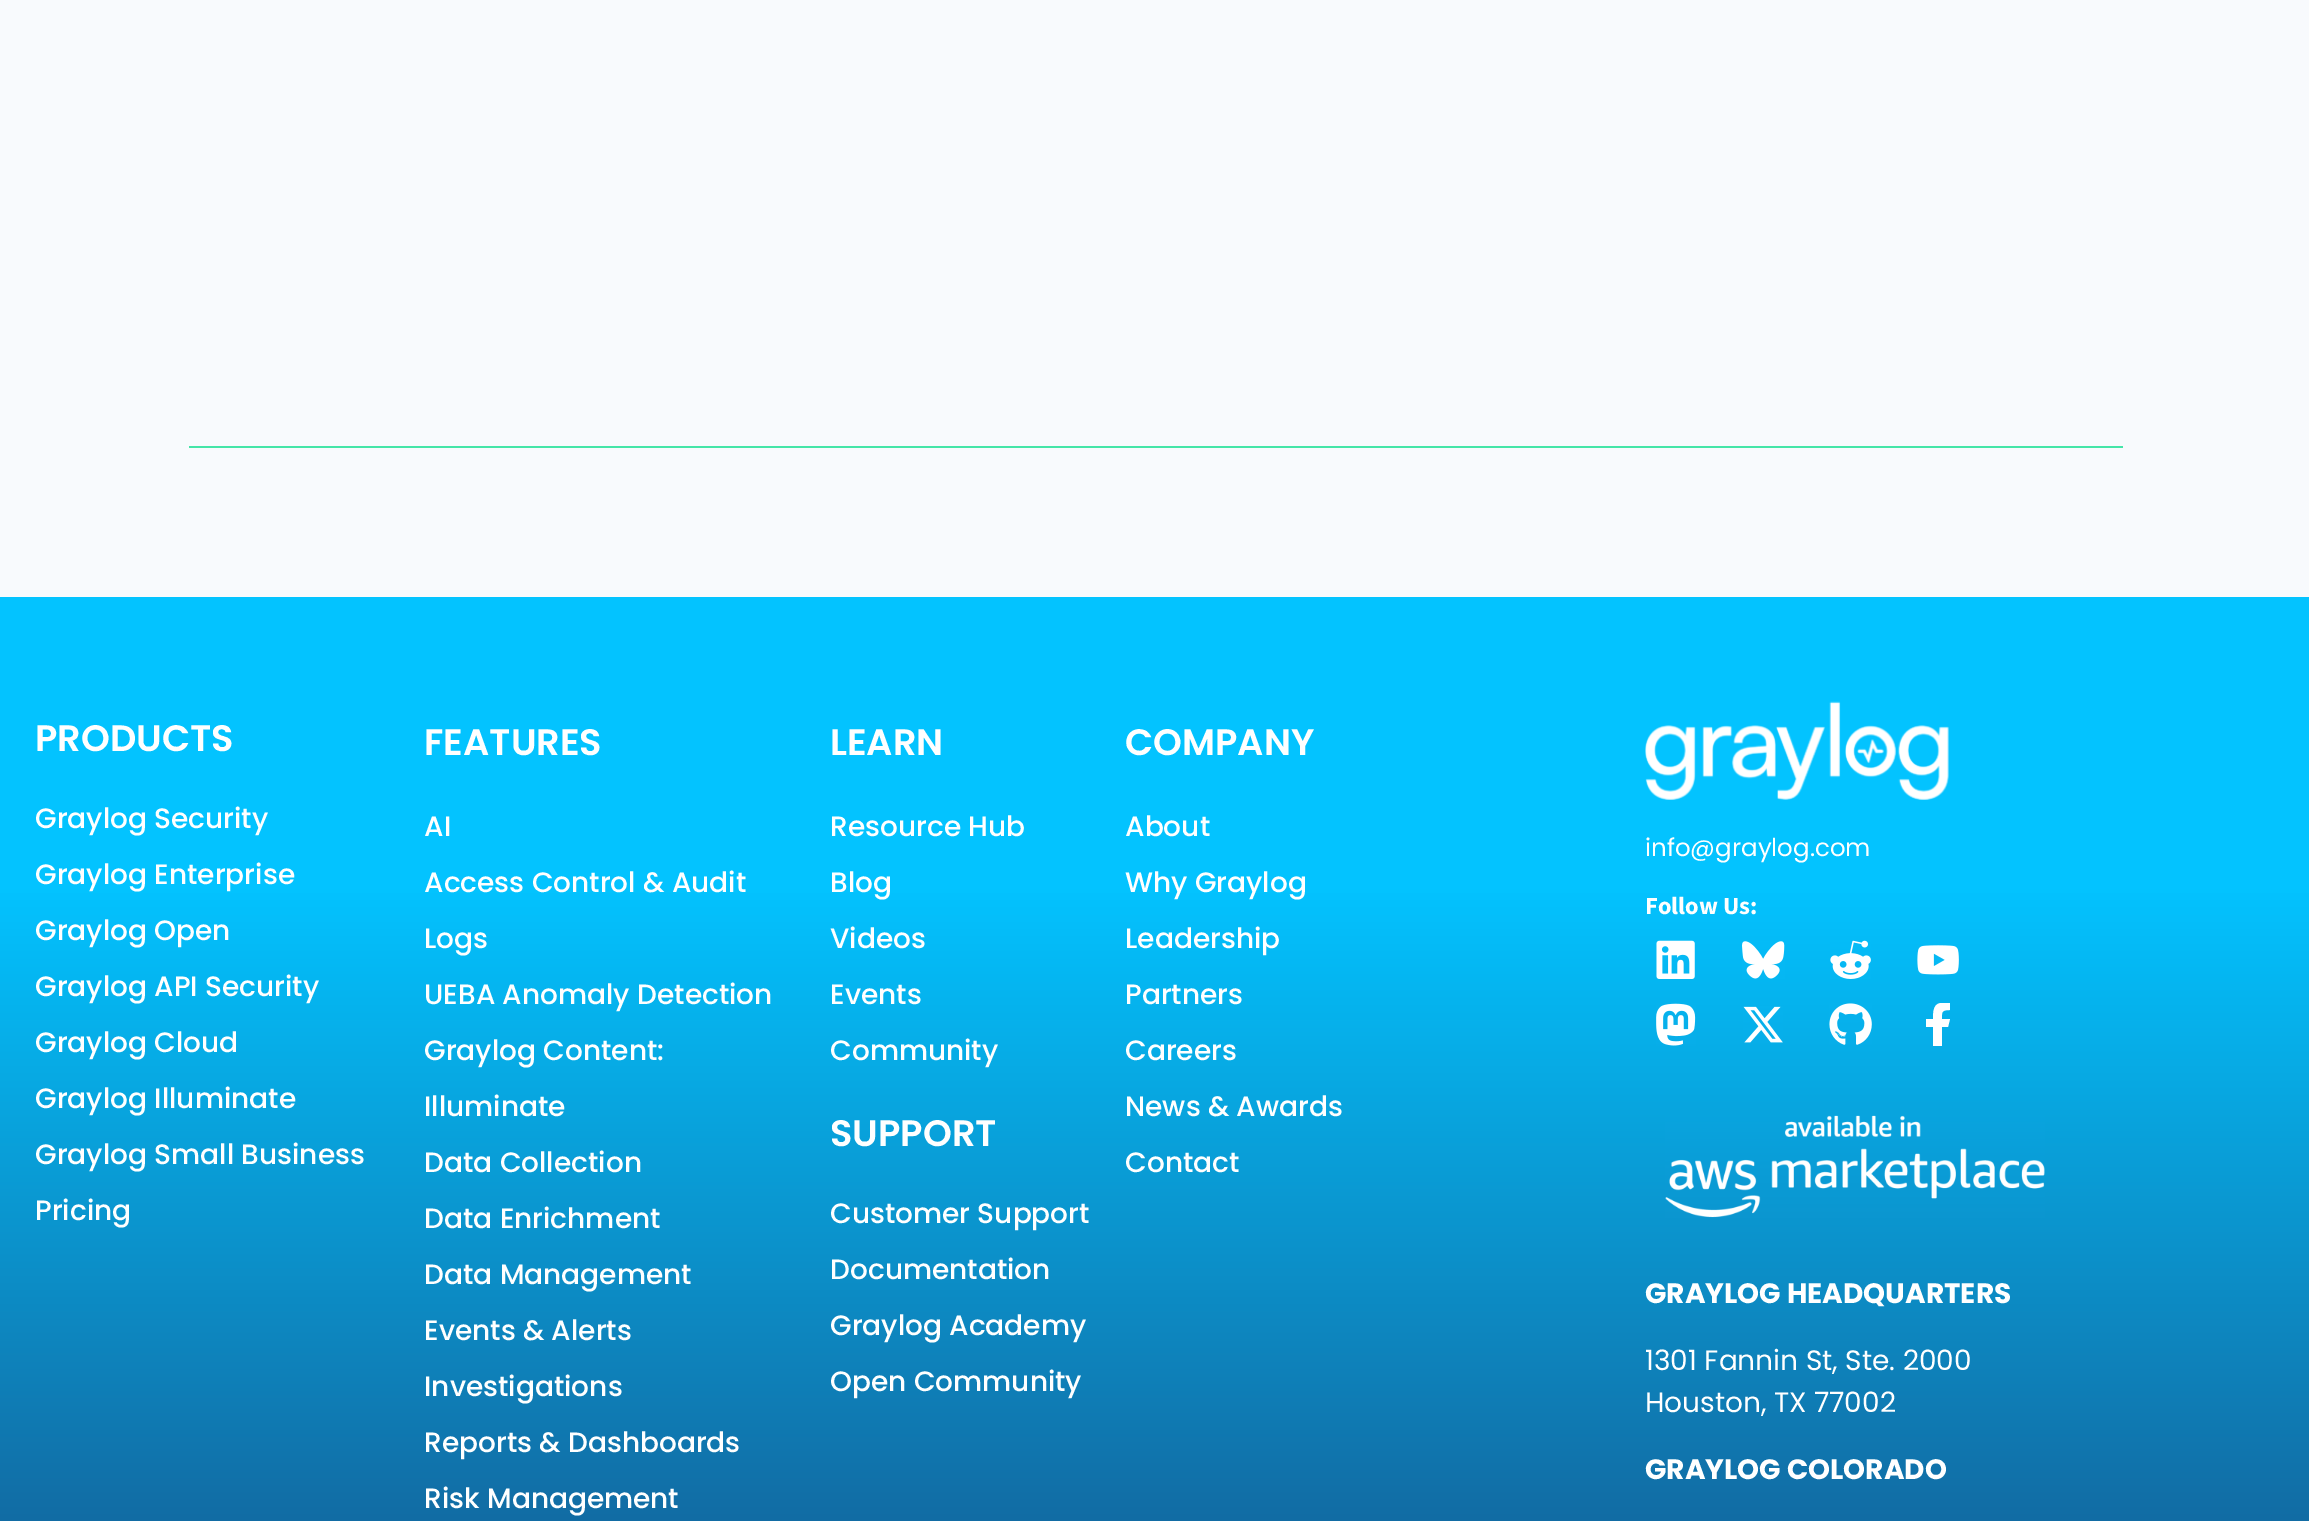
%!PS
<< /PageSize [2309 1521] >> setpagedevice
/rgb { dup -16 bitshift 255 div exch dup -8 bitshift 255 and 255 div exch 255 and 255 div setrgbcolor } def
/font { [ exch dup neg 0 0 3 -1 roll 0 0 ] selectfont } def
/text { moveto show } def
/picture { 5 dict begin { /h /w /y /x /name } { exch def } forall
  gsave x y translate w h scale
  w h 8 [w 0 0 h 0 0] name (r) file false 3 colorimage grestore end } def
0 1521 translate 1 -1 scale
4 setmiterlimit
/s1 { /Poppins-SemiBold 36.75 font 16#FFFFFF rgb } def
/s2 { /Poppins-Medium 28 font 16#FFFFFF rgb } def
/s3 { /Poppins-Regular 24.5 font 16#FFFFFF rgb } def
/s4 { /SourceSans3-Bold 24.5 font 16#FFFFFF rgb } def
/s5 { /Poppins-Bold 28 font 16#FFFFFF rgb } def
/s6 { /Poppins-Regular 28 font 16#FFFFFF rgb } def
16#F8FAFD rgb
0 0 2309 1521 rectfill
16#45E5A8 rgb
189 446 1934 2 rectfill
gsave 0 597 moveto 2309 597 lineto 2309 1521 lineto 0 1521 lineto closepath clip newpath
<< /ShadingType 2 /ColorSpace /DeviceRGB /Coords [1155 597 1155 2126] /Extend [true true] /Function << /FunctionType 3 /Domain [0 1] /Functions [<< /FunctionType 2 /Domain [0 1] /C0 [0.012 0.765 1] /C1 [0.012 0.765 1] /N 1 >> << /FunctionType 2 /Domain [0 1] /C0 [0.012 0.765 1] /C1 [0.125 0.098 0.302] /N 1 >>] /Bounds [0.19] /Encode [0 1 0 1] >> >> shfill grestore
s1
(PRODUCTS) 35 751 text
s2
(Graylog Security) 35 828 text
(Graylog Enterprise) 35 884 text
(Graylog Open) 35 940 text
(Graylog API Security) 35 996 text
(Graylog Cloud) 35 1052 text
(Graylog Illuminate) 35 1108 text
(Graylog Small Business) 35 1164 text
(Pricing) 35 1220 text
s1
(FEATURES) 424 755 text
s2
(AI) 424 836 text
(Access Control & Audit) 424 892 text
(Logs) 424 948 text
(UEBA Anomaly Detection) 424 1004 text
(Graylog Content:) 424 1060 text
(Illuminate) 424 1116 text
(Data Collection) 424 1172 text
(Data Enrichment) 424 1228 text
(Data Management) 424 1284 text
(Events & Alerts) 424 1340 text
(Investigations) 424 1396 text
(Reports & Dashboards) 424 1452 text
(Risk Management) 424 1508 text
s1
(LEARN) 830 755 text
s2
(Resource Hub) 830 836 text
(Blog) 830 892 text
(Videos) 830 948 text
(Events) 830 1004 text
(Community) 830 1060 text
s1
(SUPPORT) 830 1146 text
s2
(Customer Support) 830 1223 text
(Documentation) 830 1279 text
(Graylog Academy) 830 1335 text
(Open Community) 830 1391 text
s1
(COMPANY) 1125 755 text
s2
(About) 1125 836 text
(Why Graylog) 1125 892 text
(Leadership) 1125 948 text
(Partners) 1125 1004 text
(Careers) 1125 1060 text
(News & Awards) 1125 1116 text
(Contact) 1125 1172 text
(pic1.raw) 1645 701 304 99 picture
s3
(info@graylog.com) 1645 856 text
s4
(Follow Us:) 1645 914 text
(pic2.raw) 1656 940 39 39 picture
(pic3.raw) 1742 941 43 38 picture
(pic4.raw) 1830 940 41 39 picture
(pic5.raw) 1917 945 42 30 picture
(pic6.raw) 1656 1003 40 43 picture
(pic7.raw) 1743 1006 40 37 picture
(pic8.raw) 1829 1003 43 42 picture
gsave
1916 1003 44 44 rectclip
1948 1027 moveto 1950 1019 lineto 1942 1019 lineto 1942 1012 1941 1010 1950 1010 curveto 1950 1003 lineto 1935 1001 1933 1006 1933 1019 curveto 1926 1019 lineto 1926 1027 lineto 1933 1027 lineto 1933 1046 lineto 1942 1046 lineto 1942 1027 lineto closepath fill
grestore
(pic9.raw) 1665 1115 380 103 picture
s5
(GRAYLOG HEADQUARTERS) 1645 1303 text
s6
(1301 Fannin St, Ste. 2000) 1645 1370 text
(Houston, TX 77002) 1645 1412 text
s5
(GRAYLOG COLORADO) 1645 1479 text
showpage
